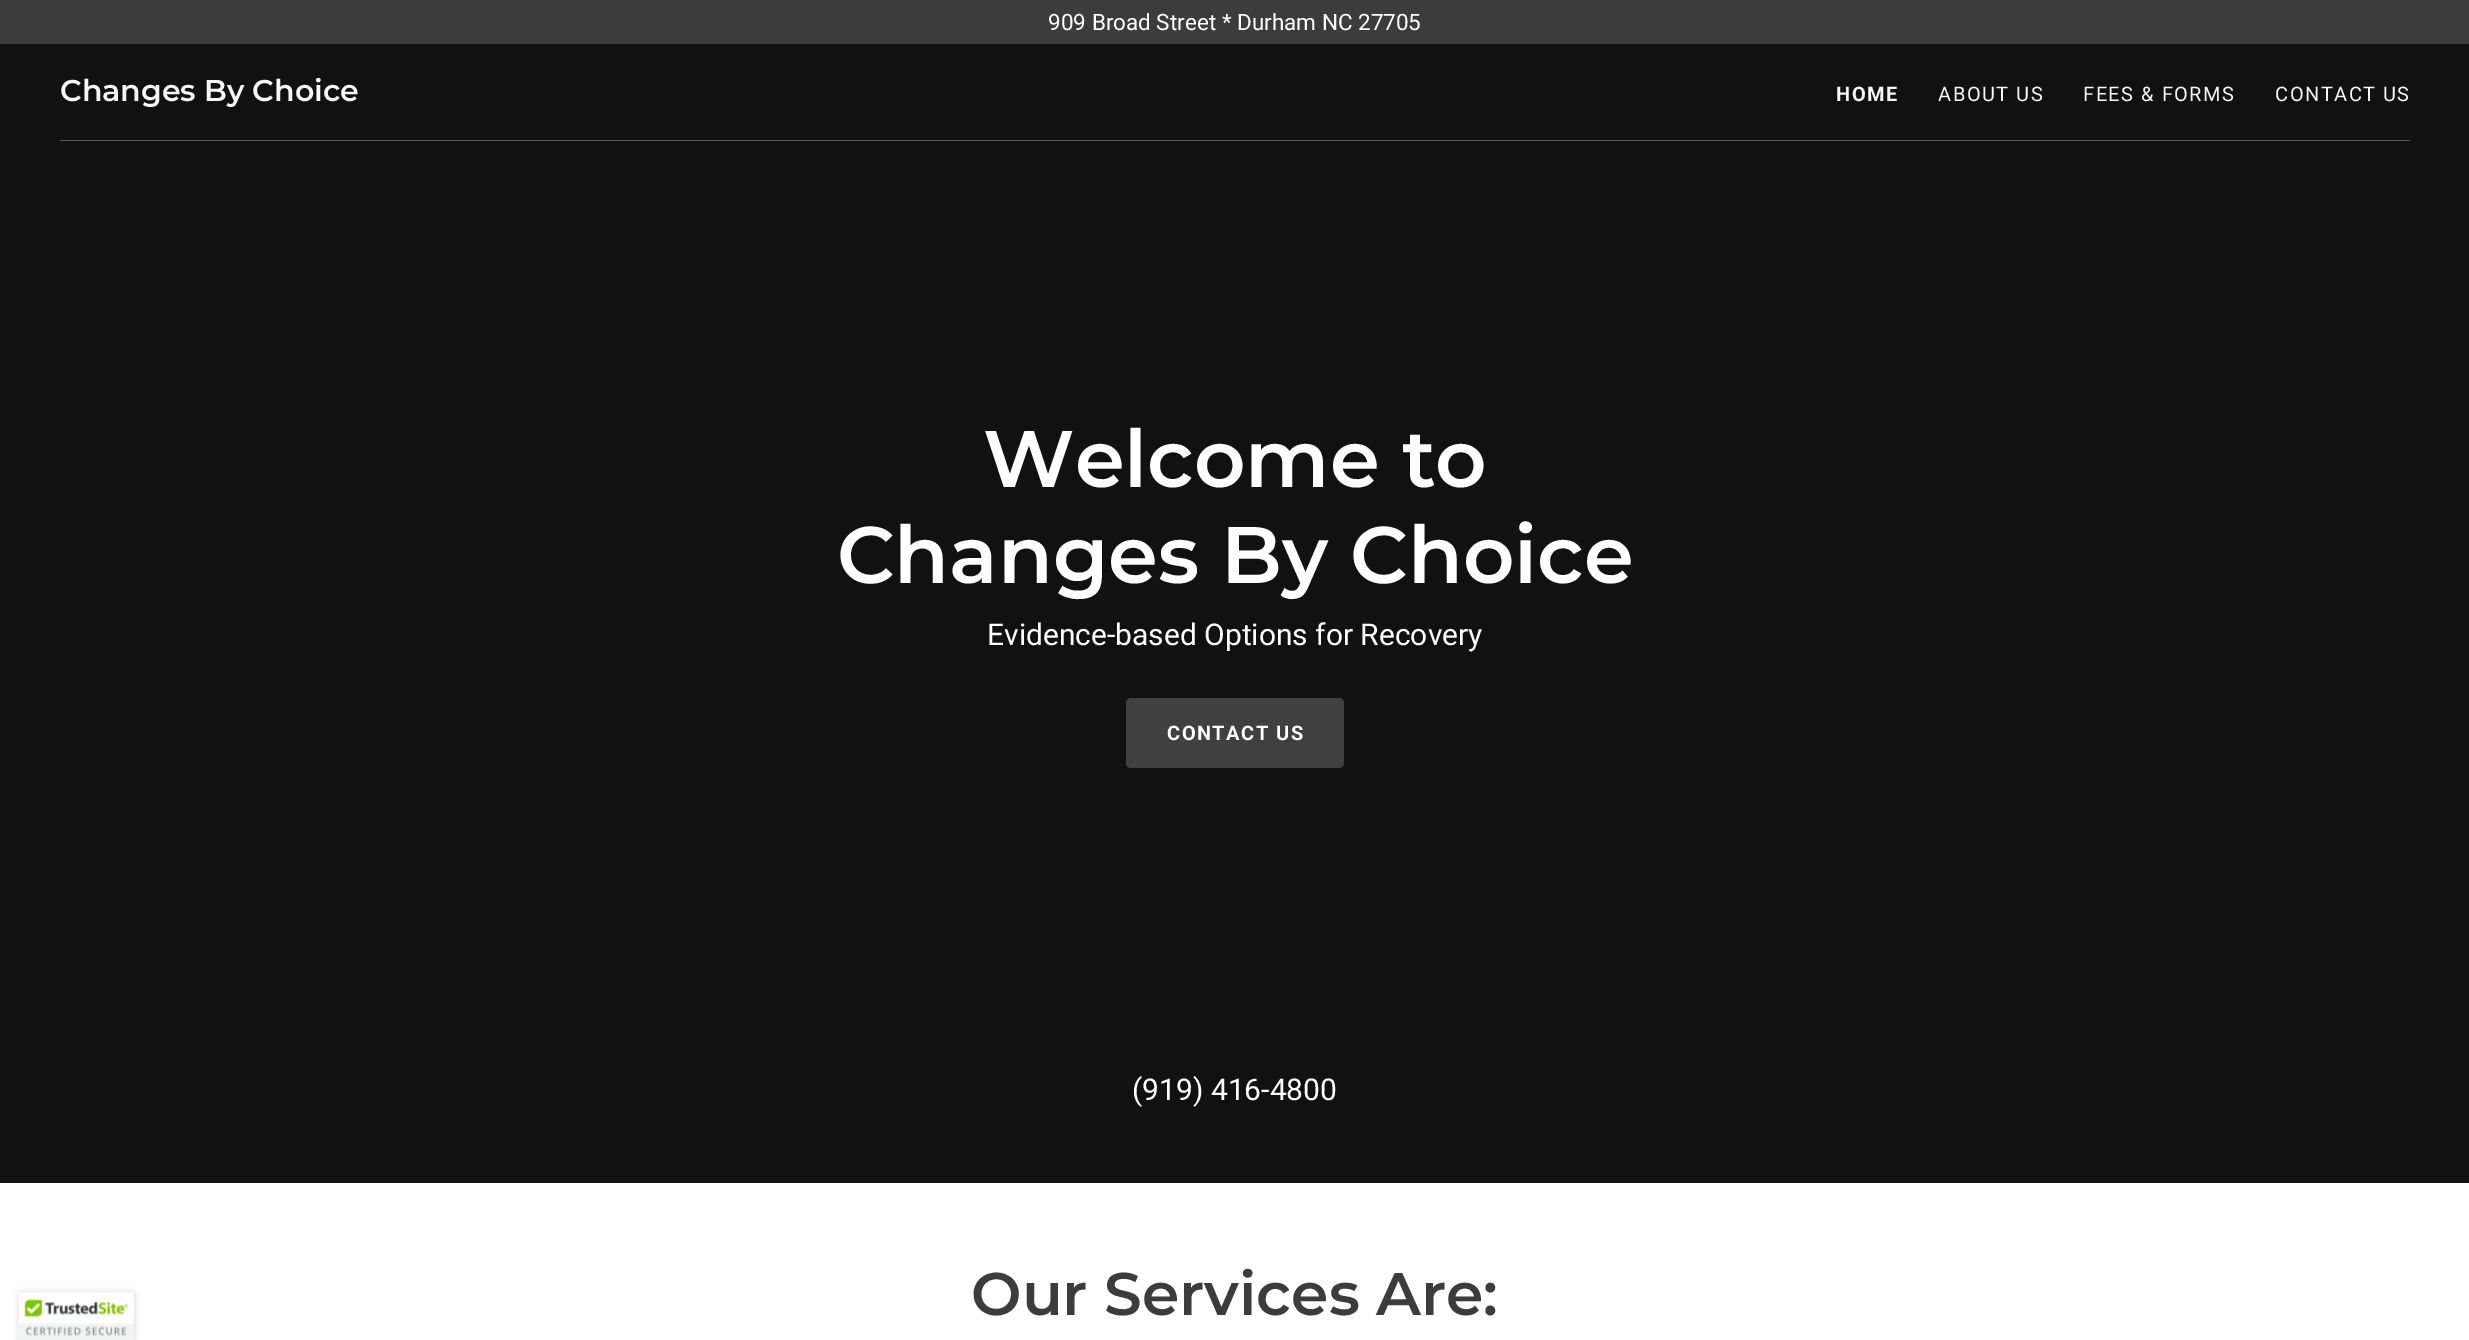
%!PS
<< /PageSize [2469 1340] /PageUsesTransparency true >> setpagedevice
/rgb { dup -16 bitshift 255 div exch dup -8 bitshift 255 and 255 div exch 255 and 255 div setrgbcolor } def
/font { [ exch dup neg 0 0 3 -1 roll 0 0 ] selectfont } def
/text { moveto show } def
/alpha { dup .setfillconstantalpha .setstrokeconstantalpha } def
/roundrect { 5 dict begin { /r /h /w /y /x } { exch def } forall
  x r add y moveto x w add y 2 copy h add r arct x w add y h add x 1 index r arct
  x y h add x y r arct x y 2 copy exch w add exch r arct closepath end } def
/shadow { 12 dict begin { /a /b /q /h /w /y /x } { exch def } forall gsave /was 0 def
  9 -2 -9 { dup b mul 4 div /e exch def 1 sub .425 mul 2.718 exch exp 1 add a .99 .min exch div /now exch def
    1 1 now sub 1 was sub div sub alpha /was now def
    w h .min e 2 mul add 0 gt { x e sub y e sub w e 2 mul add h e 2 mul add
      q e add b .6 mul add w h .min 2 div e add .min 0 .max roundrect fill } if } for grestore end } def
/picture { 5 dict begin { /h /w /y /x /name } { exch def } forall
  gsave x y translate w h scale
  w h 8 [w 0 0 h 0 0] name (r) file false 3 colorimage grestore end } def
0 .pushpdf14devicefilter
0 1340 translate 1 -1 scale
4 setmiterlimit
/s1 { /Roboto-Regular 22.5 font 16#FFFFFF rgb } def
/s2 { /Montserrat-SemiBold 30 font 16#F7F7F7 rgb } def
/s3 { /Montserrat-SemiBold 80 font 16#FFFFFF rgb } def
/s4 { /Roboto-Regular 30 font 16#FFFFFF rgb } def
/s5 { /Montserrat-SemiBold 60 font 16#3C3C3C rgb } def
16#FFFFFF rgb
0 0 2469 1340 rectfill
16#3C3C3C rgb
0 0 2469 44 rectfill
s1
(909 Broad Street * Durham NC 27705) 1048 30 text
16#111111 rgb
0 44 2469 1139 rectfill
s2
(Changes By Choice) 60 101 text
/Roboto-Bold 20 font
1836 101 moveto 1.5 0 (HOME) ashow
/Roboto-Regular 20 font
1938 101 moveto 1.5 0 (ABOUT US) ashow
2083 101 moveto 1.5 0 (FEES & FORMS) ashow
2275 101 moveto 1.5 0 (CONTACT US) ashow
16#585858 rgb
60 140 2350 1 rectfill
s3
(Welcome to) 983 487 text
(Changes By Choice) 837 583 text
s4
(Evidence-based Options for Recovery) 987 645 text
16#404040 rgb
1126 698 218 70 5 roundrect fill
/Roboto-Bold 20 font
16#FFFFFF rgb
1167 740 moveto 1.5 0 (CONTACT US) ashow
s4
(\(919\) 416-4800) 1132 1100 text
s5
(Our Services Are:) 971 1315 text
16#000000 rgb
19 1293 115 47 2.5 3 0.2 shadow
16#FFFFFF rgb
21.5 1293 moveto 131.5 1293 lineto 133 1293 134 1294 134 1295.5 curveto 134 1340 lineto 19 1340 lineto 19 1295.5 lineto 19 1294 20 1293 21.5 1293 curveto closepath fill
(pic1.raw) 18 1292 116 48 picture
.poppdf14devicefilter showpage
